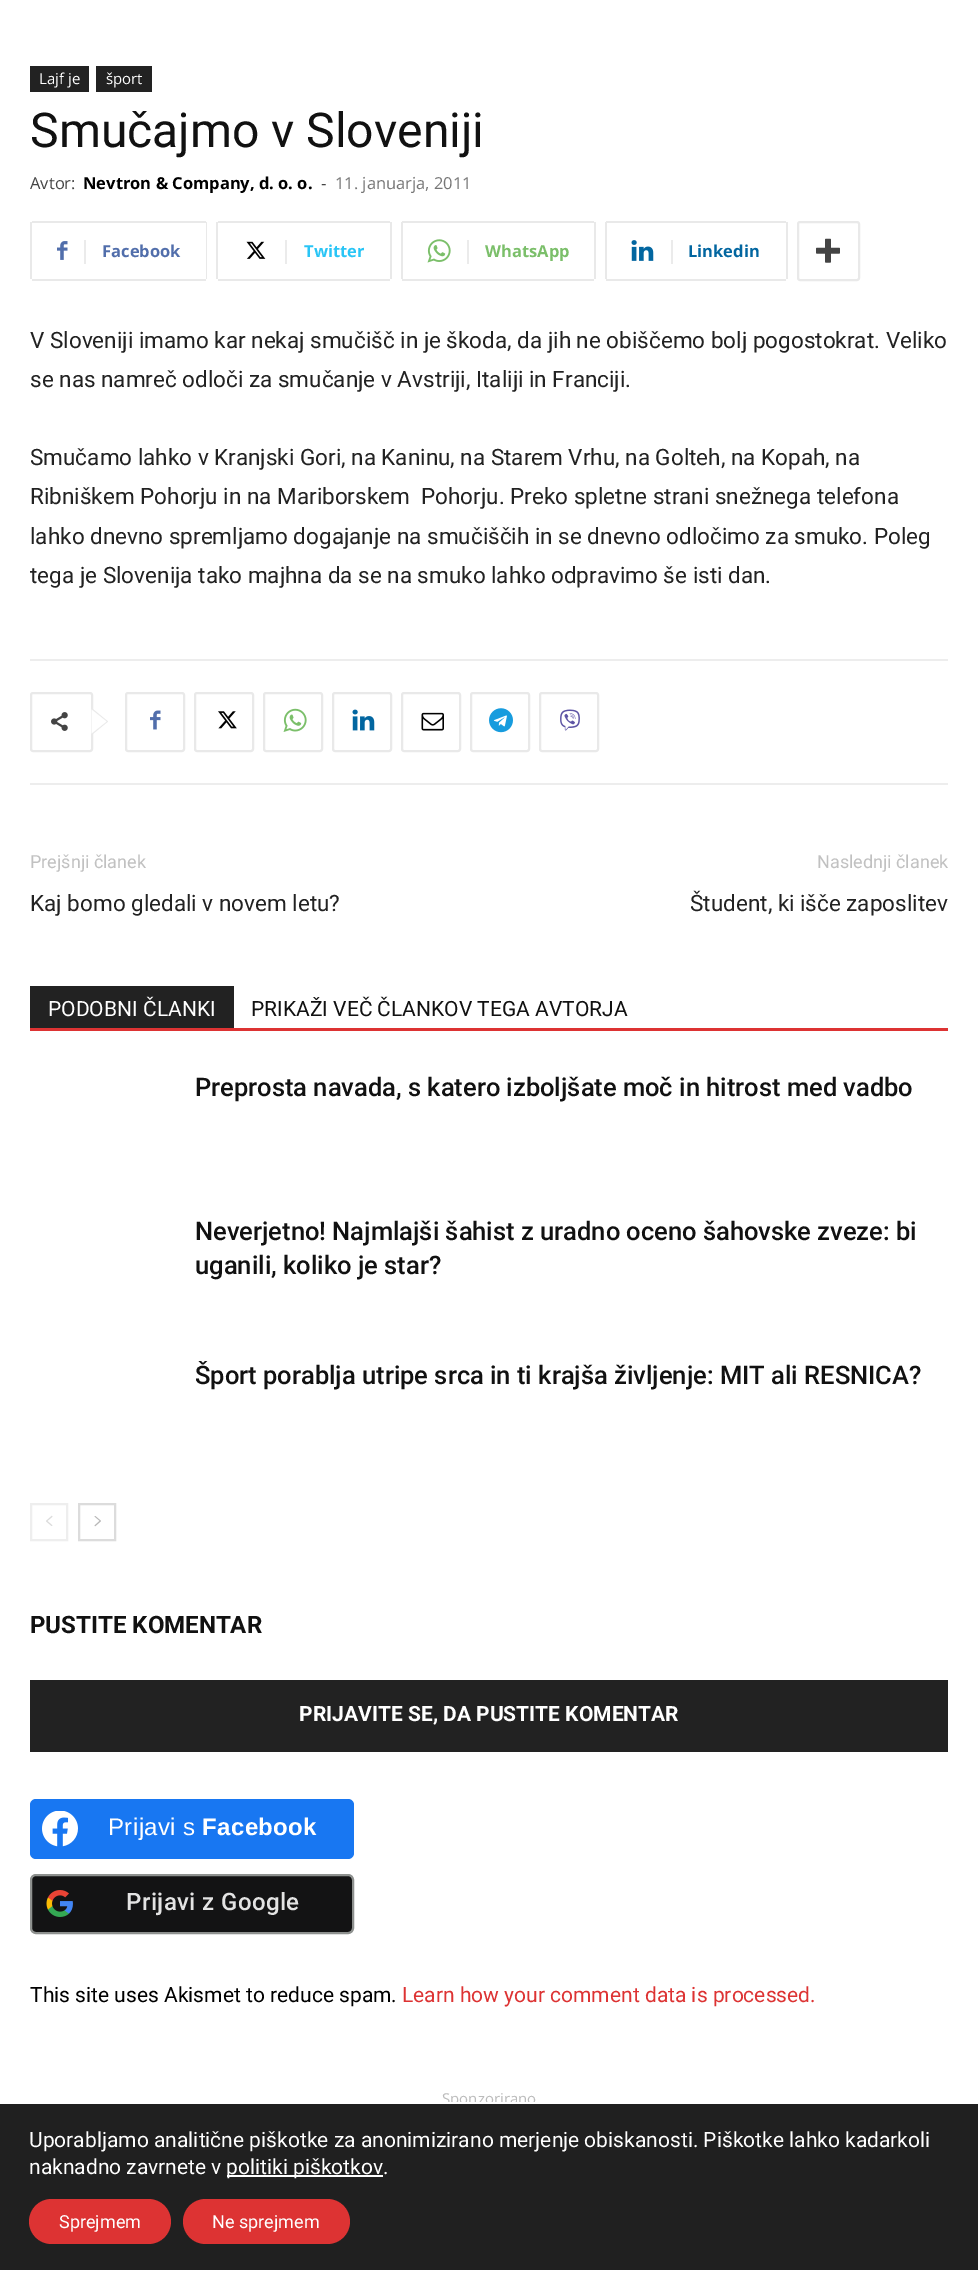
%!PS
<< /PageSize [978 2270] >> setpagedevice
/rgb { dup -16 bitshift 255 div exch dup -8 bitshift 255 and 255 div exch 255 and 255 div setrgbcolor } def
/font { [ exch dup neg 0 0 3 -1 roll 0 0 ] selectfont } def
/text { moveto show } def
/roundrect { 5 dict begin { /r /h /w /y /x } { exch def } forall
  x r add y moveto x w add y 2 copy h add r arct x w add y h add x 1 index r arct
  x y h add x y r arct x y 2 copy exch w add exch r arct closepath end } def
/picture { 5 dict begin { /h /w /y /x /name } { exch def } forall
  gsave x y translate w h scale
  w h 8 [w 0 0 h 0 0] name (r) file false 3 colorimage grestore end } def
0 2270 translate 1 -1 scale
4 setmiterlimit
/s1 { /OpenSans-Regular 15 font 16#FFFFFF rgb } def
/s2 { /Roboto-Regular 48 font 16#111111 rgb } def
/s3 { /OpenSans-Regular 16.5 font 16#444444 rgb } def
/s4 { /OpenSans-Bold 16.5 font 16#000000 rgb } def
/s5 { /OpenSans-Regular 16.5 font 16#767676 rgb } def
/s6 { /OpenSans-Bold 16.5 font 16#516EAB rgb } def
/s7 { /OpenSans-Bold 16.5 font 16#29C5F6 rgb } def
/s8 { /OpenSans-Bold 16.5 font 16#7BBF6A rgb } def
/s9 { /OpenSans-Bold 16.5 font 16#0266A0 rgb } def
/s10 { /Roboto-Regular 22.5 font 16#222222 rgb } def
/s11 { /Roboto-Regular 18 font 16#C1C1C1 rgb } def
/s12 { /Roboto-Regular 21 font 16#FFFFFF rgb } def
/s13 { /Roboto-Regular 21 font 16#111111 rgb } def
/s14 { /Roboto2-Medium 25.5 font 16#111111 rgb } def
/s15 { /Roboto-Bold 24 font 16#111111 rgb } def
/s16 { /Roboto-Bold 21 font 16#FFFFFF rgb } def
/s17 { /Roboto-Regular 21 font 16#000000 rgb } def
/s18 { /Roboto-Regular 21 font 16#DD3333 rgb } def
/s19 { /OpenSans-Regular 15 font 16#BBBBBB rgb } def
/s20 { /Roboto-Regular 18 font 16#FFFFFF rgb } def
16#FFFFFF rgb
0 0 978 2270 rectfill
16#222222 rgb
30 66 59 26 rectfill
s1
(Lajf je) 39 84 text
16#222222 rgb
96 66 56 26 rectfill
s1
(šport) 106 84 text
s2
(Smučajmo v Sloveniji) 30 147 text
s3
(Avtor:) 30 189 text
s4
(Nevtron & Company, d. o. o.) 83 189 text
s3
(-) 321 189 text
s5
(11. januarja, 2011) 335 189 text
16#E9E9E9 rgb
30 222 2 57 rectfill
(pic1.raw) 57 241 11 19 picture
32 221 174 2 rectfill
206 222 1 57 rectfill
32 279 174 2 rectfill
16#EBEBEB rgb
84 240 2 24 rectfill
s6
(Facebook) 102 257 text
16#E9E9E9 rgb
216 222 2 57 rectfill
(pic2.raw) 246 241 20 18 picture
218 221 172 2 rectfill
390 222 2 57 rectfill
218 279 172 2 rectfill
16#EBEBEB rgb
285 240 2 24 rectfill
s7
(Twitter) 304 257 text
16#E9E9E9 rgb
402 221 192 2 rectfill
401 222 2 57 rectfill
(pic3.raw) 427 239 24 24 picture
594 222 2 57 rectfill
402 279 192 2 rectfill
16#EBEBEB rgb
467 240 2 24 rectfill
s8
(WhatsApp) 485 257 text
16#E9E9E9 rgb
606 221 180 2 rectfill
605 222 2 57 rectfill
(pic4.raw) 631 240 23 21 picture
786 222 2 57 rectfill
606 279 180 2 rectfill
16#EBEBEB rgb
671 240 2 24 rectfill
s9
(Linkedin) 688 257 text
16#E9E9E9 rgb
2 setlinewidth
798 222 61 58 2 roundrect stroke
(pic5.raw) 816 238 24 25 picture
s10
(V Sloveniji imamo kar nekaj smučišč in je škoda, da jih ne obiščemo bolj pogostokrat. Veliko) 30 348 text
(se nas namreč odloči za smučanje v Avstriji, Italiji in Franciji.) 30 387 text
(Smučamo lahko v Kranjski Gori, na Kaninu, na Starem Vrhu, na Golteh, na Kopah, na) 30 465 text
(Ribniškem Pohorju in na Mariborskem  Pohorju. Preko spletne strani snežnega telefona) 30 504 text
(lahko dnevno spremljamo dogajanje na smučiščih in se dnevno odločimo za smuko. Poleg) 30 544 text
(tega je Slovenija tako majhna da se na smuko lahko odpravimo še isti dan.) 30 583 text
16#EDEDED rgb
30 659 918 2 rectfill
30 783 918 2 rectfill
16#E9E9E9 rgb
31 693 61 58 2 roundrect stroke
91.5 735 moveto 91.5 708 lineto 108 721.5 lineto closepath fill
(pic6.raw) 51 712 17 19 picture
16#FFFFFF rgb
91.5 733.5 moveto 91.5 709.5 lineto 106.5 721.5 lineto closepath fill
16#E9E9E9 rgb
126 693 58 58 2 roundrect stroke
(pic7.raw) 150 710 11 20 picture
195 693 58 58 2 roundrect stroke
(pic8.raw) 218 711 19 18 picture
264 693 58 58 2 roundrect stroke
(pic9.raw) 283 708 24 24 picture
333 693 58 58 2 roundrect stroke
(pic10.raw) 352 709 23 22 picture
402 693 58 58 2 roundrect stroke
(pic11.raw) 421 712 23 19 picture
471 693 58 58 2 roundrect stroke
(pic12.raw) 489 708 24 25 picture
540 693 58 58 2 roundrect stroke
(pic13.raw) 560 709 20 22 picture
s11
(Prejšnji članek) 30 868 text
s10
(Kaj bomo gledali v novem letu?) 30 911 text
s11
(Naslednji članek) 817 868 text
s10
(Študent, ki išče zaposlitev) 690 911 text
16#DD3333 rgb
30 1028 918 3 rectfill
16#222222 rgb
30 986 204 42 rectfill
s12
(PODOBNI ČLANKI) 48 1016 text
s13
(PRIKAŽI VEČ ČLANKOV TEGA AVTORJA) 251 1016 text
s14
(Preprosta navada, s katero izboljšate moč in hitrost med vadbo) 195 1096 text
(Neverjetno! Najmlajši šahist z uradno oceno šahovske zveze: bi) 195 1240 text
(uganili, koliko je star?) 195 1274 text
(Šport porablja utripe srca in ti krajša življenje: MIT ali RESNICA?) 195 1384 text
16#EEEEEE rgb
31 1504 36 36 rectstroke
(pic14.raw) 46 1515 7 11 picture
16#DCDCDC rgb
79 1504 36 36 rectstroke
(pic15.raw) 94 1516 7 11 picture
s15
(PUSTITE KOMENTAR) 30 1633 text
16#222222 rgb
30 1680 918 72 rectfill
s16
(PRIJAVITE SE, DA PUSTITE KOMENTAR) 299 1721 text
16#1877F2 rgb
30 1799 324 60 6 roundrect fill
(pic16.raw) 42 1811 36 36 picture
/LiberationSans-Regular 24 font
16#FFFFFF rgb
108 1835 moveto 0.4 0 (Prijavi s) ashow
/LiberationSans-Bold 24 font
202 1835 moveto 0.4 0 (Facebook) ashow
16#131314 rgb
31 1875 322 58 5 roundrect gsave fill grestore
16#8E918F rgb
stroke
(pic17.raw) 46 1890 27 27 picture
/Roboto-Medium 24 font
16#E3E3E3 rgb
126 1910 moveto 0.4 0 (Prijavi z Google) ashow
s17
(This site uses Akismet to reduce spam.) 30 2002 text
s18
(Learn how your comment data is processed.) 402 2002 text
s19
(Sponzorirano) 442 2104 text
16#202020 rgb
0 2104 978 166 rectfill
16#FFFFFF rgb
442 2102 93 2 rectfill
s12
(Uporabljamo analitične piškotke za anonimizirano merjenje obiskanosti. Piškotke lahko kadarkoli) 29 2147 text
(naknadno zavrnete v) 29 2174 text
227 2175 156 2 rectfill
(politiki piškotkov.) 226 2174 text
16#DD3333 rgb
29 2199 142 45 22.5 roundrect fill
s20
(Sprejmem) 59 2228 text
16#DD3333 rgb
183 2199 167 45 22.5 roundrect fill
s20
(Ne sprejmem) 212 2228 text
showpage
